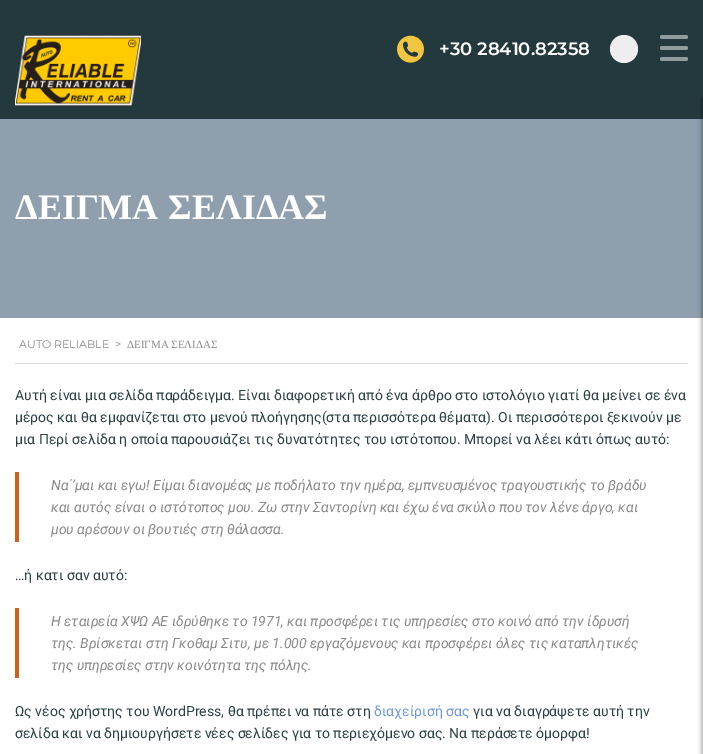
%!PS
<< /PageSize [703 754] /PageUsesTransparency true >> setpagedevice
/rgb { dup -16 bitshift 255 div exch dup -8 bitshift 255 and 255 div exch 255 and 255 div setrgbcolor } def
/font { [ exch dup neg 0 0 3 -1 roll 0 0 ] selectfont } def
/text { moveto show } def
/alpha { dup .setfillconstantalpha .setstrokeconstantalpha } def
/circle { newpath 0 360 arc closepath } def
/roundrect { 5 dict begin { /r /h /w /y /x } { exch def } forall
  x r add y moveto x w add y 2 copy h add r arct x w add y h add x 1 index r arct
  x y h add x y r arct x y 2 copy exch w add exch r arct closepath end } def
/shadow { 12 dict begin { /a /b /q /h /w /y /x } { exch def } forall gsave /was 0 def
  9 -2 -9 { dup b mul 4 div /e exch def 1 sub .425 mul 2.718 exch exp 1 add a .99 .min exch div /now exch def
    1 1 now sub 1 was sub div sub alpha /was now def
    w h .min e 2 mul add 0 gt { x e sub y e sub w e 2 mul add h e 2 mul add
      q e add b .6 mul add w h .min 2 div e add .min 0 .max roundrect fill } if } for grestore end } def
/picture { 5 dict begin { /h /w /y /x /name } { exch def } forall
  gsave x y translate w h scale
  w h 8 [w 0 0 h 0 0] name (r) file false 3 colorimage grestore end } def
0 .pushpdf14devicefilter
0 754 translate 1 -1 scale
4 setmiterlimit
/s1 { /Montserrat-SemiBold 18 font 16#FFFFFF rgb } def
/s2 { /Montserrat-Regular 11 font 16#888888 rgb } def
/s3 { /LiberationSerif-Regular 11 font 16#888888 rgb } def
/s4 { /Roboto-Regular 14 font 16#2A4045 rgb } def
/s5 { /Roboto-Italic 14 font 16#888888 rgb } def
/s6 { /Roboto-Regular 14 font 16#6C98E1 rgb } def
16#FFFFFF rgb
0 0 703 754 rectfill
16#23393D rgb
0 0 703 119 rectfill
(pic1.raw) 15 35 126 71 picture
(pic2.raw) 397 35 27 28 picture
16#EEEEEE rgb
624 49 14 circle fill
16#8F9FAD rgb
0 119 703 199 rectfill
16#000000 rgb
702 98 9 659 0 2.5 0.2 shadow
s1
(+30 28410.82358) 439 55 text
16#919C9E rgb
660 35 28 4 2 roundrect fill
660 46 28 4 2 roundrect fill
660 57 28 4 2 roundrect fill
16#000000 rgb
702 99 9 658 0 2.5 0.2 shadow
/LiberationSerif-Bold 36 font
16#FFFFFF rgb
15 219 moveto 1 0 32 (ΔΕΙΓΜΑ ΣΕΛΙΔΑΣ) widthshow
16#DDDDDD rgb
15 363 673 1 rectfill
s2
(AUTO RELIABLE) 19 348 text
(>) 115 348 text
s3
(ΔΕΙΓΜΑ ΣΕΛΙΔΑΣ) 127 348 text
s4
(Αυτή είναι μια σελίδα παράδειγμα. Είναι διαφορετική από ένα άρθρο στο ιστολόγιο γιατί θα μείνει σε ένα) 15 400 text
(μέρος και θα εμφανίζεται στο μενού πλοήγησης\(στα περισσότερα θέματα\). Οι περισσότεροι ξεκινούν με) 15 422 text
(μια Περί σελίδα η οποία παρουσιάζει τις δυνατότητες του ιστότοπου. Μπορεί να λέει κάτι όπως αυτό:) 15 444 text
16#CC6119 rgb
15 472 4 70 rectfill
s5
(Να΄’μαι και εγω! Είμαι διανομέας με ποδήλατο την ημέρα, εμπνευσμένος τραγουστικής το βράδυ) 51 490 text
(και αυτός είναι ο ιστότοπος μου. Ζω στην Σαντορίνη και έχω ένα σκύλο που τον λένε άργο, και) 51 512 text
(μου αρέσουν οι βουτιές στη θάλασσα.) 51 534 text
s4
(…ή κατι σαν αυτό:) 15 580 text
16#CC6119 rgb
15 608 4 70 rectfill
s5
(Η εταιρεία ΧΨΩ ΑΕ ιδρύθηκε το 1971, και προσφέρει τις υπηρεσίες στο κοινό από την ίδρυσή) 51 626 text
(της. Βρίσκεται στη Γκοθαμ Σιτυ, με 1.000 εργαζόμενους και προσφέρει όλες τις καταπλητικές) 51 648 text
(της υπηρεσίες στην κοινότητα της πόλης.) 51 670 text
s4
(Ως νέος χρήστης του WordPress, θα πρέπει να πάτε στη) 15 716 text
s6
(διαχείρισή σας) 374 716 text
s4
(για να διαγράψετε αυτή την) 473 716 text
(σελίδα και να δημιουργήσετε νέες σελίδες για το περιεχόμενο σας. Να περάσετε όμορφα!) 15 738 text
.poppdf14devicefilter showpage
